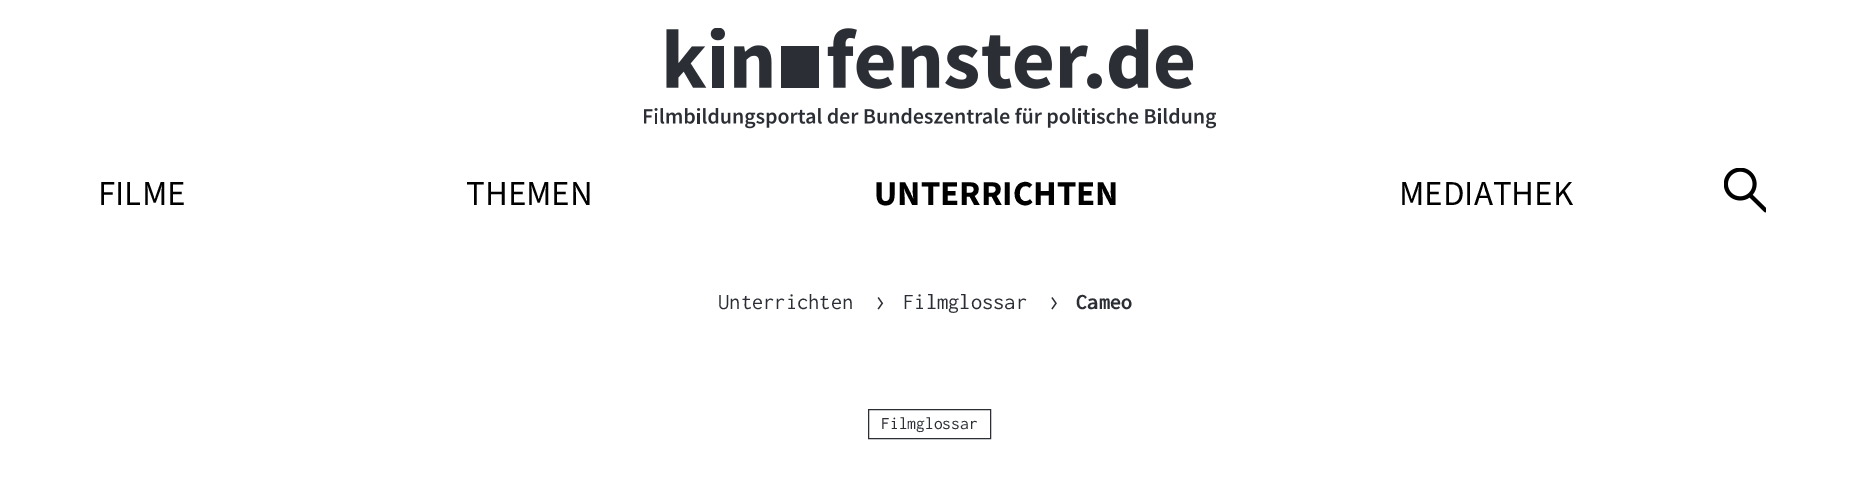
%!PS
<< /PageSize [1858 492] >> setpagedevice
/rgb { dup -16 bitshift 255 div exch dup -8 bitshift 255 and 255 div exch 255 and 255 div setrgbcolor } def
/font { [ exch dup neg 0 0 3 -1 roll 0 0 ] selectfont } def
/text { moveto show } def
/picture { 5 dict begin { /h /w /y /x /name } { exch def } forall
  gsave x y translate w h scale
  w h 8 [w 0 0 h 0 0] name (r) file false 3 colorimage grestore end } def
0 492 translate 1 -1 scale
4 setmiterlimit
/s1 { /SourceSans3-Regular 35 font 16#000000 rgb } def
/s2 { /SourceSans3-Bold 35 font 16#000000 rgb } def
/s3 { /Inconsolata-Regular 22.5 font 16#2B2E34 rgb } def
/s4 { /Inconsolata-Bold 22.5 font 16#2B2E34 rgb } def
/s5 { /Inconsolata-Regular 17.5 font 16#2B2E34 rgb } def
16#FFFFFF rgb
0 0 1858 492 rectfill
(pic1.raw) 644 28 572 101 picture
s1
(FILME) 98 205 text
(THEMEN) 466 205 text
s2
(UNTERRICHTEN) 874 205 text
s1
(MEDIATHEK) 1399 205 text
(pic2.raw) 1724 168 42 45 picture
s3
(Unterrichten) 718 309 text
(pic3.raw) 877 297 7 13 picture
(Filmglossar) 903 309 text
(pic4.raw) 1051 297 6 13 picture
s4
(Cameo) 1076 309 text
868.5 409.5 122 29 rectstroke
s5
(Filmglossar) 881 429 text
showpage
